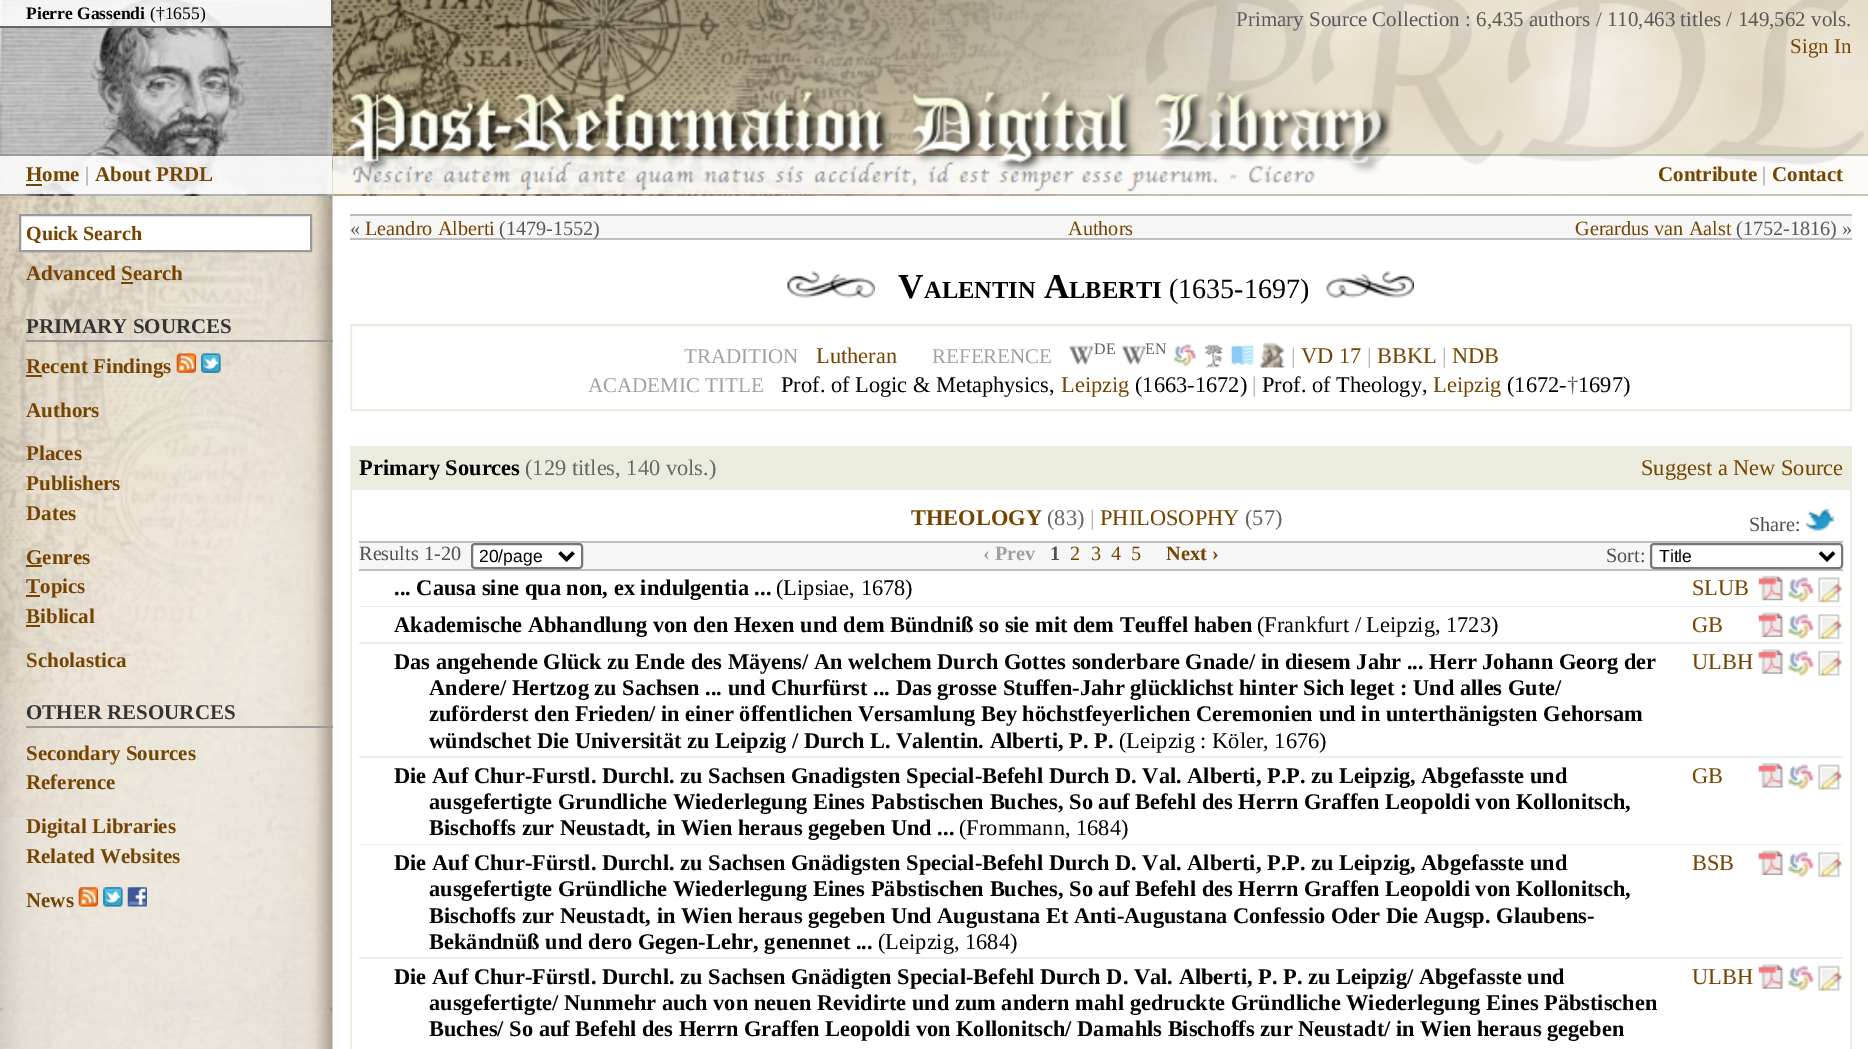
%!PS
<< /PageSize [1868 1049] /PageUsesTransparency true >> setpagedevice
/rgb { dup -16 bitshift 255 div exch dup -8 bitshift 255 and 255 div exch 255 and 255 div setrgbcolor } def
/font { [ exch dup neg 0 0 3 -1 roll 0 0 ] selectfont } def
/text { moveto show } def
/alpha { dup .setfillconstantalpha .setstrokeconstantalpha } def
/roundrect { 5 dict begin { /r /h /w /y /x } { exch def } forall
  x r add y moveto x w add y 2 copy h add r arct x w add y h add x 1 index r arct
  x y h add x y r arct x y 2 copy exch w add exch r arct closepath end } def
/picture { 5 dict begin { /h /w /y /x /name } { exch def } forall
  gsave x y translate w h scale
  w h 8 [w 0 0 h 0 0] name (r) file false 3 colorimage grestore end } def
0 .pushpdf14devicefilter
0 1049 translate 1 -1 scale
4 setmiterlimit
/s1 { /LiberationSerif-Bold 17.5 font 16#000000 rgb } def
/s2 { /LiberationSerif-Regular 17.5 font 16#000000 rgb } def
/s3 { /LiberationSerif-Bold 21 font 16#744400 rgb } def
/s4 { /LiberationSerif-Regular 21 font 16#8F8F8F rgb } def
/s5 { /LiberationSerif-Regular 21 font 16#585858 rgb } def
/s6 { /LiberationSerif-Regular 21 font 16#744400 rgb } def
/s7 { /LiberationSerif-Bold 20 font 16#744400 rgb } def
/s8 { /LiberationSerif-Bold 21 font 16#333333 rgb } def
/s9 { /LiberationSerif-Regular 20.25 font 16#585858 rgb } def
/s10 { /LiberationSerif-Regular 20.25 font 16#744400 rgb } def
/s11 { /LiberationSerif-Bold 35 font 16#000000 rgb } def
/s12 { /LiberationSerif-Bold 24.5 font 16#000000 rgb } def
/s13 { /LiberationSerif-Regular 28 font 16#000000 rgb } def
/s14 { /LiberationSerif-Regular 21 font 16#A0A0A0 rgb } def
/s15 { /LiberationSerif-Regular 22.4 font 16#744400 rgb } def
/s16 { /LiberationSerif-Regular 16 font 16#5E5E5E rgb } def
/s17 { /LiberationSerif-Regular 22.4 font 16#A0A0A0 rgb } def
/s18 { /LiberationSerif-Regular 22.4 font 16#000000 rgb } def
/s19 { /LiberationSerif-Regular 22.4 font 16#585858 rgb } def
/s20 { /LiberationSerif-Bold 22.4 font 16#000000 rgb } def
/s21 { /LiberationSerif-Regular 22.4 font 16#656565 rgb } def
/s22 { /LiberationSerif-Bold 22.4 font 16#744400 rgb } def
/s23 { /LiberationSerif-Regular 20.25 font 16#505050 rgb } def
/s24 { /LiberationSans-Regular 17.5 font 16#000000 rgb } def
/s25 { /LiberationSerif-Bold 20.25 font 16#A0A0A0 rgb } def
/s26 { /LiberationSerif-Bold 20.25 font 16#505050 rgb } def
/s27 { /LiberationSerif-Bold 20.25 font 16#744400 rgb } def
16#FFFFFF rgb
0 0 1868 1049 rectfill
(pic1.raw) 0 0 333 196 picture
0.85 alpha
0 0 331 26 rectfill
0.15 alpha
16#000000 rgb
0 154 333 2 rectfill
0.85 alpha
16#FFFFFF rgb
0 156 333 38 rectfill
0.15 alpha
16#000000 rgb
0 194 333 2 rectfill
1 alpha
(pic2.raw) 332 0 1536 196 picture
16#656565 rgb
331 0 2 28 rectfill
0 26 333 2 rectfill
s1
(Pierre Gassendi) 26 19 text
s2
(\(†1655\)) 150 19 text
s3
(Home) 26 181 text
26 184 16 2 rectfill
s4
(|) 85 181 text
s3
(About PRDL) 95 181 text
0.15 alpha
16#000000 rgb
333 154 1535 2 rectfill
0.85 alpha
16#FFFFFF rgb
333 156 1535 38 rectfill
1 alpha
(pic4.raw) 346 88 1048 86 picture
(pic5.raw) 351 160 964 33 picture
(pic3.raw) 1145 0 719 165 picture
s5
(Primary Source Collection : 6,435 authors / 110,463 titles / 149,562 vols.) 1236 26 text
s6
(Sign In) 1790 53 text
s3
(Contribute) 1658 181 text
s4
(|) 1762 181 text
s3
(Contact) 1772 181 text
0.15 alpha
16#000000 rgb
333 194 1535 2 rectfill
1 alpha
(pic6.raw) 0 196 333 853 picture
(pic7.raw) 0 196 333 621 picture
16#FFFFFF rgb
20 215 moveto 311 215 lineto 311 251 lineto 20 251 lineto closepath gsave fill grestore
16#9A9A9A rgb
2 setlinewidth
stroke
gsave
26 222 280 21 rectclip
s7
(Quick Search) 26 240 text
grestore
s3
(Advanced Search) 26 280 text
121 282 12 2 rectfill
16#9A9A9A rgb
26 340 307 2 rectfill
s8
(PRIMARY SOURCES) 26 333 text
16#744400 rgb
26 375 16 2 rectfill
(Recent Findings) 26 373 text
(pic8.raw) 176 353 20 20 picture
(pic9.raw) 201 353 20 20 picture
(Authors) 26 417 text
(Places) 26 460 text
(Publishers) 26 490 text
(Dates) 26 520 text
(Genres) 26 564 text
26 565 16 2 rectfill
26 595 14 2 rectfill
(Topics) 26 593 text
(Biblical) 26 623 text
26 625 14 2 rectfill
(Scholastica) 26 667 text
16#9A9A9A rgb
26 726 307 2 rectfill
s8
(OTHER RESOURCES) 26 719 text
s3
(Secondary Sources) 26 760 text
(Reference) 26 789 text
(Digital Libraries) 26 833 text
(Related Websites) 26 863 text
(News) 26 907 text
(pic10.raw) 78 887 20 20 picture
(pic11.raw) 103 887 20 20 picture
(pic12.raw) 127 887 20 20 picture
16#F6F6F6 rgb
350 216 1502 22 rectfill
16#BEBEBE rgb
350 214 1502 2 rectfill
350 238 1502 2 rectfill
s9
(«) 350 235 text
s10
(Leandro Alberti) 365 235 text
s9
(\(1479-1552\)) 499 235 text
s10
(Authors) 1068 235 text
(Gerardus van Aalst) 1575 235 text
s9
(\(1752-1816\) ») 1736 235 text
(pic13.raw) 787 271 88 27 picture
s11
(V) 898 298 text
s12
(ALENTIN) 924 298 text
s11
(A) 1044 298 text
s12
(LBERTI) 1069 298 text
s13
(\(1635-1697\)) 1169 298 text
(pic14.raw) 1326 271 88 27 picture
16#EBECDD rgb
351 325 1500 85 rectstroke
s14
(TRADITION) 684 363 text
s15
(Lutheran) 816 363 text
s14
(REFERENCE) 932 363 text
(pic15.raw) 1069 345 25 20 picture
s16
(DE) 1094 354 text
(EN) 1145 354 text
(pic16.raw) 1121 345 26 20 picture
(pic17.raw) 1173 344 23 23 picture
(pic18.raw) 1204 344 19 24 picture
(pic19.raw) 1230 345 24 20 picture
(pic20.raw) 1260 343 25 25 picture
s17
(|) 1291 363 text
s15
(VD 17) 1301 363 text
s17
(|) 1367 363 text
s15
(BBKL) 1377 363 text
s17
(|) 1442 363 text
s15
(NDB) 1452 363 text
s14
(ACADEMIC TITLE) 588 392 text
s18
(Prof. of Logic & Metaphysics,) 781 392 text
s15
(Leipzig) 1061 392 text
s18
(\(1663-1672\)) 1135 392 text
s17
(|) 1252 392 text
s18
(Prof. of Theology,) 1262 392 text
s15
(Leipzig) 1433 392 text
s18
(\(1672-) 1507 392 text
s19
(†) 1567 392 text
s18
(1697\)) 1578 392 text
16#EBECDD rgb
350 446 1502 603 rectfill
s20
(Primary Sources) 359 475 text
s21
(\(129 titles, 140 vols.\)) 525 475 text
s15
(Suggest a New Source) 1641 475 text
16#FFFFFF rgb
352 490 1498 559 rectfill
16#BEBEBE rgb
359 541 1484 2 rectfill
s22
(THEOLOGY) 911 525 text
s21
(\(83\)) 1047 525 text
s17
(|) 1090 525 text
s15
(PHILOSOPHY) 1100 525 text
s21
(\(57\)) 1245 525 text
s23
(Share:) 1749 531 text
(pic21.raw) 1806 508 28 23 picture
16#F6F6F6 rgb
359 543 1484 26 rectfill
16#BEBEBE rgb
359 569 1484 2 rectfill
s23
(Results 1-20) 359 560 text
16#FFFFFF rgb
472 544 110 24 3 roundrect gsave fill grestore
16#767676 rgb
stroke
16#000000 rgb
3.5 setlinewidth
559.5 552.5 moveto 566.5 559.5 lineto 573.5 552.5 lineto stroke
s24
(20/page) 479 562 text
s25
(‹ Prev) 983 560 text
s26
(1) 1050 560 text
s10
(2) 1070 560 text
(3) 1091 560 text
(4) 1111 560 text
(5) 1131 560 text
s27
(Next ›) 1166 560 text
s23
(Sort:) 1606 562 text
16#FFFFFF rgb
1651 544 191 24 3 roundrect gsave fill grestore
16#767676 rgb
2 setlinewidth
stroke
16#000000 rgb
3.5 setlinewidth
1820 552.5 moveto 1827 559.5 lineto 1834 552.5 lineto stroke
s24
(Title) 1659 562 text
16#EDEDED rgb
359 606 1484 1 rectfill
s20
(... Causa sine qua non, ex indulgentia ...) 394 595 text
s18
(\(Lipsiae, 1678\)) 776 595 text
s15
(SLUB) 1692 595 text
(pic22.raw) 1758 575 26 26 picture
(pic23.raw) 1788 577 26 26 picture
(pic24.raw) 1818 577 25 26 picture
16#EDEDED rgb
359 642 1484 2 rectfill
s20
(Akademische Abhandlung von den Hexen und dem Bündniß so sie mit dem Teuffel haben) 394 632 text
s18
(\(Frankfurt / Leipzig, 1723\)) 1257 632 text
s15
(GB) 1692 632 text
(pic25.raw) 1758 612 26 25 picture
(pic26.raw) 1788 613 26 27 picture
(pic27.raw) 1818 614 25 26 picture
16#EDEDED rgb
359 756 1484 2 rectfill
s20
(Das angehende Glück zu Ende des Mäyens/ An welchem Durch Gottes sonderbare Gnade/ in diesem Jahr ... Herr Johann Georg der) 394 669 text
(Andere/ Hertzog zu Sachsen ... und Churfürst ... Das grosse Stuffen-Jahr glücklichst hinter Sich leget : Und alles Gute/) 429 695 text
(zuförderst den Frieden/ in einer öffentlichen Versamlung Bey höchstfeyerlichen Ceremonien und in unterthänigsten Gehorsam) 429 721 text
(wündschet Die Universität zu Leipzig / Durch L. Valentin. Alberti, P. P.) 429 748 text
s18
(\(Leipzig : Köler, 1676\)) 1119 748 text
s15
(ULBH) 1692 669 text
(pic28.raw) 1758 649 26 25 picture
(pic29.raw) 1788 650 26 26 picture
(pic30.raw) 1818 650 25 26 picture
16#EDEDED rgb
359 844 1484 1 rectfill
s20
(Die Auf Chur-Furstl. Durchl. zu Sachsen Gnadigsten Special-Befehl Durch D. Val. Alberti, P.P. zu Leipzig, Abgefasste und) 394 783 text
(ausgefertigte Grundliche Wiederlegung Eines Pabstischen Buches, So auf Befehl des Herrn Graffen Leopoldi von Kollonitsch,) 429 809 text
(Bischoffs zur Neustadt, in Wien heraus gegeben Und ...) 429 835 text
s18
(\(Frommann, 1684\)) 959 835 text
s15
(GB) 1692 783 text
(pic31.raw) 1758 763 26 25 picture
(pic32.raw) 1788 764 26 26 picture
(pic33.raw) 1818 764 25 26 picture
16#EDEDED rgb
359 957 1484 2 rectfill
s20
(Die Auf Chur-Fürstl. Durchl. zu Sachsen Gnädigsten Special-Befehl Durch D. Val. Alberti, P.P. zu Leipzig, Abgefasste und) 394 870 text
(ausgefertigte Gründliche Wiederlegung Eines Päbstischen Buches, So auf Befehl des Herrn Graffen Leopoldi von Kollonitsch,) 429 896 text
(Bischoffs zur Neustadt, in Wien heraus gegeben Und Augustana Et Anti-Augustana Confessio Oder Die Augsp. Glaubens-) 429 923 text
(Bekändnüß und dero Gegen-Lehr, genennet ...) 429 949 text
s18
(\(Leipzig, 1684\)) 878 949 text
s15
(BSB) 1692 870 text
(pic25.raw) 1758 850 26 25 picture
(pic26.raw) 1788 851 26 27 picture
(pic27.raw) 1818 852 25 26 picture
s20
(Die Auf Chur-Fürstl. Durchl. zu Sachsen Gnädigten Special-Befehl Durch D. Val. Alberti, P. P. zu Leipzig/ Abgefasste und) 394 984 text
(ausgefertigte/ Nunmehr auch von neuen Revidirte und zum andern mahl gedruckte Gründliche Wiederlegung Eines Päbstischen) 429 1010 text
(Buches/ So auf Befehl des Herrn Graffen Leopoldi von Kollonitsch/ Damahls Bischoffs zur Neustadt/ in Wien heraus gegeben) 429 1036 text
s15
(ULBH) 1692 984 text
(pic28.raw) 1758 964 26 25 picture
(pic29.raw) 1788 965 26 26 picture
(pic30.raw) 1818 965 25 26 picture
.poppdf14devicefilter showpage
